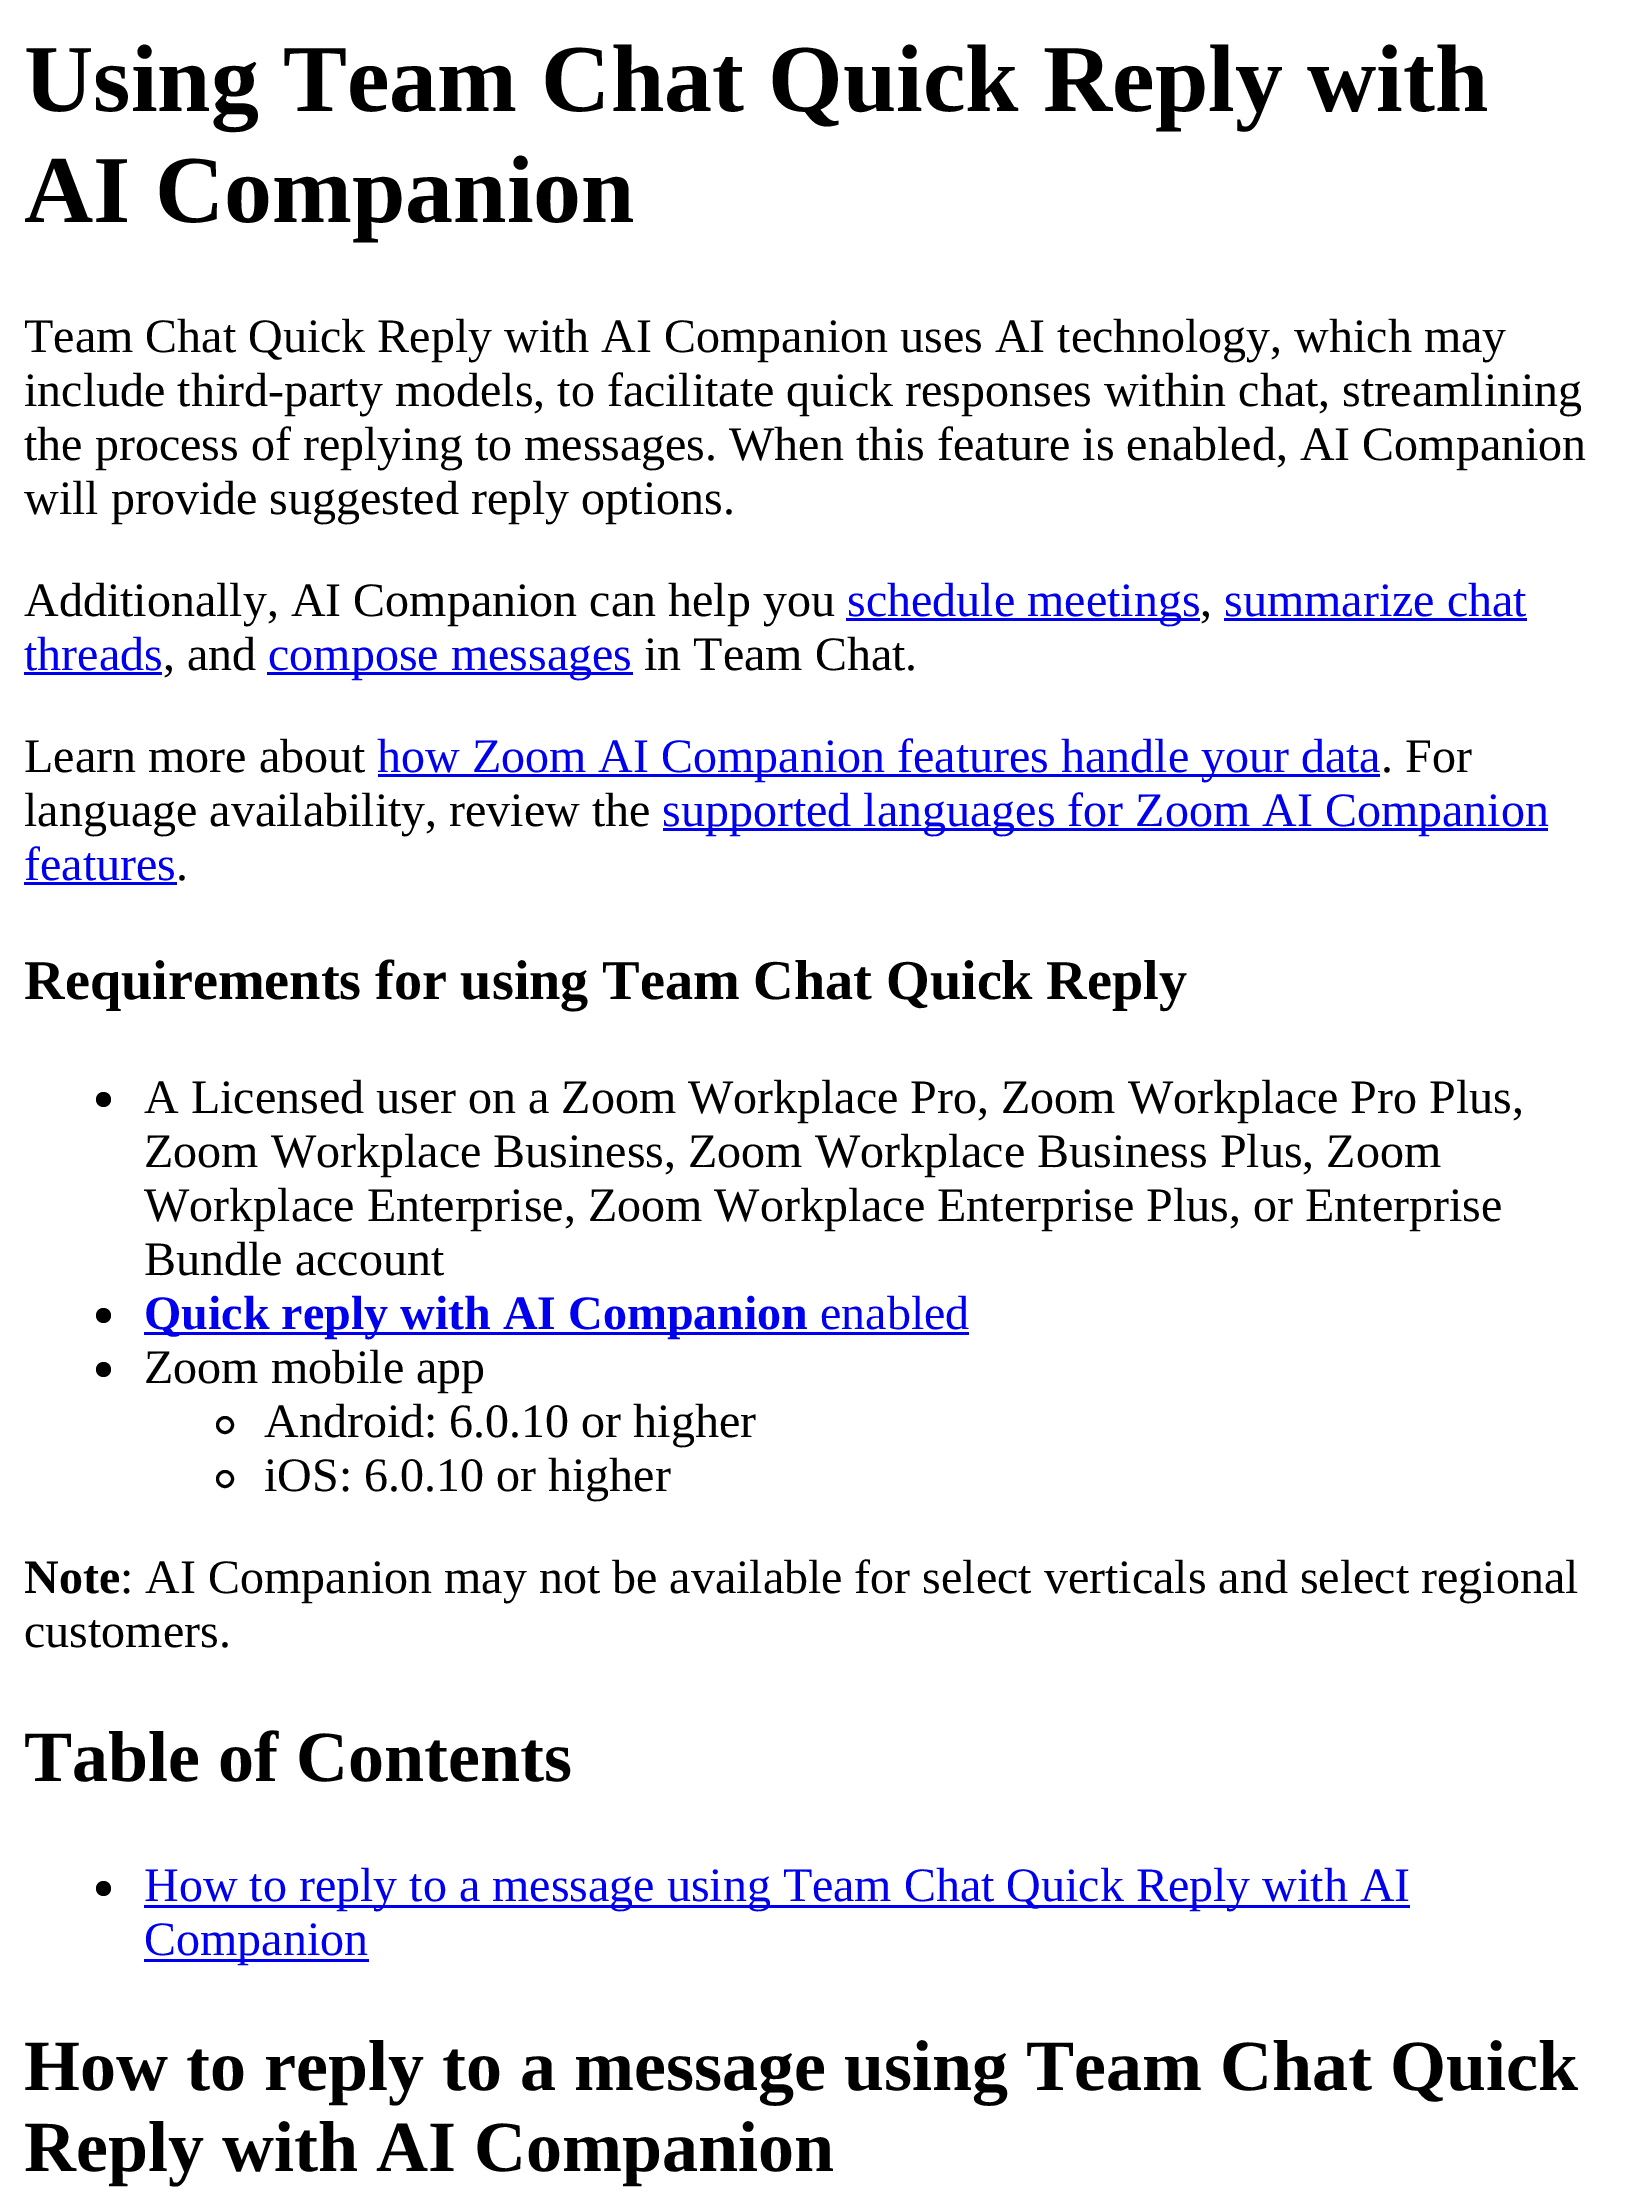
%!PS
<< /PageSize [1626 2192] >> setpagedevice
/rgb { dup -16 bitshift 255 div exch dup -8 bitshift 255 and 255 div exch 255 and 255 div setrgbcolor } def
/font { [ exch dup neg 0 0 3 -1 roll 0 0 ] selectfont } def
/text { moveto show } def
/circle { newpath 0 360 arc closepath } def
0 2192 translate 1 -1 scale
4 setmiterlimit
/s1 { /LiberationSerif-Bold 96 font 16#000000 rgb } def
/s2 { /LiberationSerif-Regular 48 font 16#000000 rgb } def
/s3 { /LiberationSerif-Regular 48 font 16#0000EE rgb } def
/s4 { /LiberationSerif-Bold 48 font 16#0000EE rgb } def
/s5 { /LiberationSerif-Bold 48 font 16#000000 rgb } def
/s6 { /LiberationSerif-Bold 72 font 16#000000 rgb } def
16#FFFFFF rgb
0 0 1626 2192 rectfill
s1
(Using Team Chat Quick Reply with) 24 111 text
(AI Companion) 24 222 text
s2
(Team Chat Quick Reply with AI Companion uses AI technology, which may) 24 352 text
(include third-party models, to facilitate quick responses within chat, streamlining) 24 406 text
(the process of replying to messages. When this feature is enabled, AI Companion) 24 460 text
(will provide suggested reply options.) 24 514 text
(Additionally, AI Companion can help you) 24 616 text
16#0000EE rgb
846 618 354 3 rectfill
(schedule meetings) 847 616 text
s2
(,) 1200 616 text
s3
(summarize chat) 1224 616 text
1224 618 303 3 rectfill
(threads) 24 670 text
24 672 138 3 rectfill
s2
(, and) 163 670 text
16#0000EE rgb
267 672 366 3 rectfill
(compose messages) 268 670 text
s2
(in Team Chat.) 644 670 text
(Learn more about) 24 772 text
16#0000EE rgb
378 774 1002 3 rectfill
(how Zoom AI Companion features handle your data) 377 772 text
s2
(. For) 1381 772 text
(language availability, review the) 24 826 text
16#0000EE rgb
663 828 885 3 rectfill
(supported languages for Zoom AI Companion) 662 826 text
(features) 24 880 text
24 882 153 3 rectfill
s2
(.) 176 880 text
/LiberationSerif-Bold 56.2 font
24 999 moveto -0.25 0 32 (Requirements for using Team Chat Quick Reply) widthshow
103.5 1099.5 7.5 circle fill
s2
(A Licensed user on a Zoom Workplace Pro, Zoom Workplace Pro Plus,) 144 1113 text
(Zoom Workplace Business, Zoom Workplace Business Plus, Zoom) 144 1167 text
(Workplace Enterprise, Zoom Workplace Enterprise Plus, or Enterprise) 144 1221 text
(Bundle account) 144 1275 text
103.5 1315.5 7.5 circle fill
16#0000EE rgb
144 1332 663 3 rectfill
s4
(Quick reply with AI Companion) 144 1329 text
807 1332 162 3 rectfill
s3
(enabled) 820 1329 text
16#000000 rgb
103.5 1369.5 7.5 circle fill
(Zoom mobile app) 144 1383 text
3 setlinewidth
225 1425 7.5 circle stroke
(Android: 6.0.10 or higher) 264 1437 text
225 1479 7.5 circle stroke
(iOS: 6.0.10 or higher) 264 1491 text
s5
(Note) 24 1593 text
s2
(: AI Companion may not be available for select verticals and select regional) 120 1593 text
(customers.) 24 1647 text
s6
(Table of Contents) 24 1781 text
103.5 1888.5 7.5 circle fill
16#0000EE rgb
144 1905 1266 3 rectfill
s3
(How to reply to a message using Team Chat Quick Reply with AI) 144 1901 text
144 1959 225 3 rectfill
(Companion) 144 1955 text
s6
(How to reply to a message using Team Chat Quick) 24 2090 text
(Reply with AI Companion) 24 2171 text
showpage
